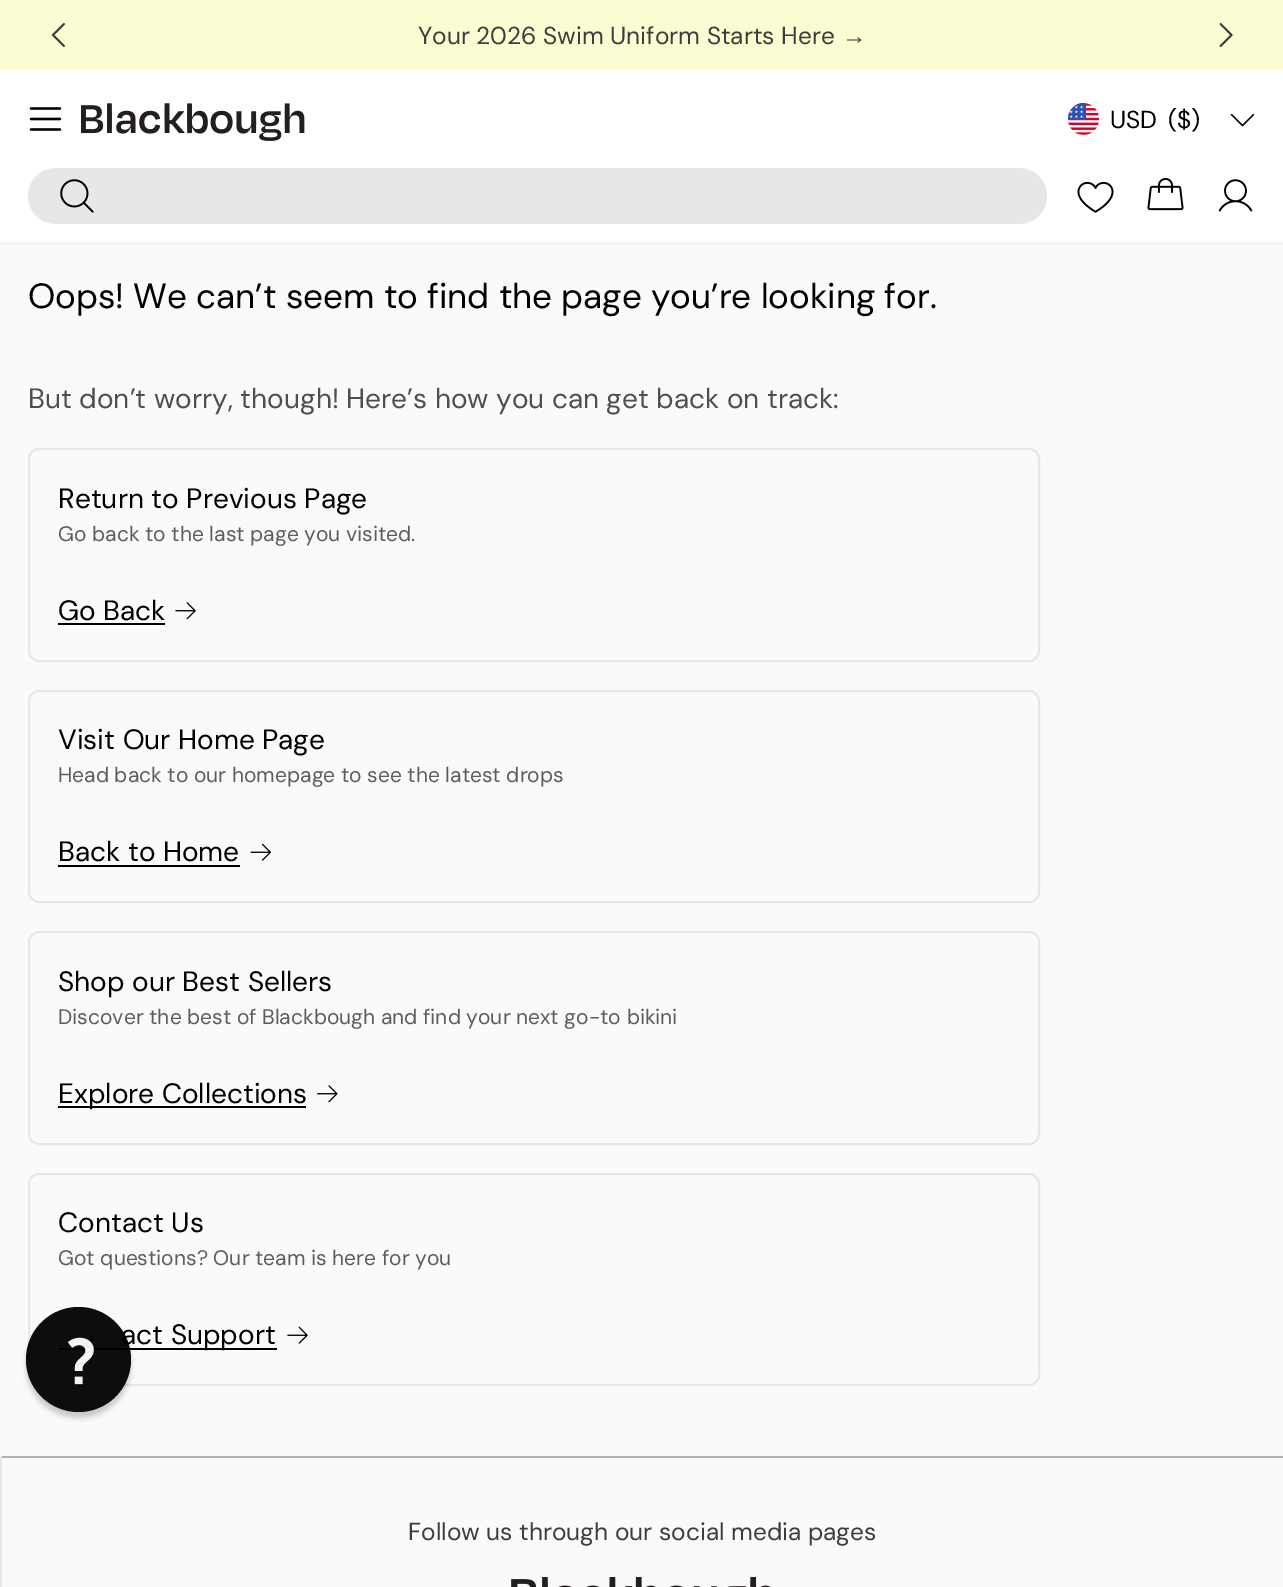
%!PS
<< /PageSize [1283 1587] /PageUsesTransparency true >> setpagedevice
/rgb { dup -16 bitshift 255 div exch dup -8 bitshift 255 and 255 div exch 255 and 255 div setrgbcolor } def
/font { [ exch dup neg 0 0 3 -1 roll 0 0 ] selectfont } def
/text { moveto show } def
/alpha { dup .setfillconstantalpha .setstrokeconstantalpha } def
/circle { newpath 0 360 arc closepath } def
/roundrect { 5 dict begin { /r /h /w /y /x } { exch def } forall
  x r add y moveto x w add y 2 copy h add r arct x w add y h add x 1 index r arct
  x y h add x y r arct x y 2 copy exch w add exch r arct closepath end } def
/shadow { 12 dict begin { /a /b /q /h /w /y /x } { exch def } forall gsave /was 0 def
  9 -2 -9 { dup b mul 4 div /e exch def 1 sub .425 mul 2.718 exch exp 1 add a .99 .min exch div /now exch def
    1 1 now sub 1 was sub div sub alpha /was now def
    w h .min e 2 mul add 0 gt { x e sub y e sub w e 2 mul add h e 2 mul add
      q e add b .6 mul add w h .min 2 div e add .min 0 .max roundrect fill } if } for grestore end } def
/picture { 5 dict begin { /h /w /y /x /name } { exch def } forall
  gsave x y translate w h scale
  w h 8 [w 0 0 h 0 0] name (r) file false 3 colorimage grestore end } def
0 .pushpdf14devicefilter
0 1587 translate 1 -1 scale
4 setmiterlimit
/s1 { /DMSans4-Regular 24.5 font 16#3D3D3D rgb } def
/s2 { /LiberationSans-Regular 24.5 font 16#3D3D3D rgb } def
/s3 { /DMSans4-Regular 24.5 font 16#000000 rgb } def
/s4 { /DMSans-Regular 35 font 16#000000 rgb } def
/s5 { /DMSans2-Regular 28 font 16#4F4F4F rgb } def
/s6 { /DMSans2-Regular 28 font 16#000000 rgb } def
/s7 { /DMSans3-Regular 21 font 16#5D5D5D rgb } def
16#FAFAFA rgb
0 0 1283 1587 rectfill
16#000000 rgb
0 2 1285 241 0 2 0.05 shadow
16#FFFFFF rgb
0 70 1283 172 rectfill
16#FBFCD2 rgb
0 0 1283 70 rectfill
(pic1.raw) 51 23 14 24 picture
s1
(Your 2026 Swim Uniform Starts Here) 418 44 text
s2
(→) 842 44 text
(pic2.raw) 1219 23 14 24 picture
(pic3.raw) 29 107 33 24 picture
(pic4.raw) 81 103 224 38 picture
(pic5.raw) 1068 103 31 32 picture
s3
(USD) 1110 128 text
(\($\)) 1168 128 text
(pic6.raw) 1230 113 25 14 picture
16#E7E7E7 rgb
28 168 1019 56 28 roundrect fill
(pic7.raw) 60 179 34 34 picture
(pic8.raw) 1077 181 37 32 picture
(pic9.raw) 1147 178 37 33 picture
(pic10.raw) 1218 179 35 33 picture
s4
(Oops! We can’t seem to find the page you’re looking for.) 28 308 text
s5
(But don’t worry, though! Here’s how you can get back on track:) 28 408 text
16#E7E7E7 rgb
2 setlinewidth
29 449 1010 212 10 roundrect stroke
s6
(Return to Previous Page) 58 508 text
s7
(Go back to the last page you visited.) 58 541 text
s6
(Go Back) 58 620 text
58 623 107 2 rectfill
(pic11.raw) 175 602 21 18 picture
16#E7E7E7 rgb
29 691 1010 211 10 roundrect stroke
s6
(Visit Our Home Page) 58 749 text
s7
(Head back to our homepage to see the latest drops) 58 782 text
s6
(Back to Home) 58 861 text
58 865 182 2 rectfill
(pic12.raw) 250 843 21 18 picture
16#E7E7E7 rgb
29 932 1010 212 10 roundrect stroke
s6
(Shop our Best Sellers) 58 991 text
s7
(Discover the best of Blackbough and find your next go-to bikini) 58 1024 text
16#000000 rgb
58 1106 248 2 rectfill
s6
(Explore Collections) 58 1103 text
(pic13.raw) 317 1085 21 18 picture
16#E7E7E7 rgb
29 1174 1010 211 10 roundrect stroke
s6
(Contact Us) 58 1232 text
s7
(Got questions? Our team is here for you) 58 1265 text
16#000000 rgb
58 1348 219 2 rectfill
s6
(act Support) 121 1344 text
(pic14.raw) 287 1326 21 18 picture
16#B0B0B0 rgb
0 1456 1283 2 rectfill
16#E5E7EB rgb
0 1456 2 131 rectfill
s1
(Follow us through our social media pages) 408 1540 text
(pic15.raw) 511 1577 260 10 picture
gsave
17 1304 moveto 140 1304 lineto 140 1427 lineto 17 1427 lineto closepath 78.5 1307 moveto 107.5 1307 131 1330.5 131 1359.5 curveto 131 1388.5 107.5 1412 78.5 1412 curveto 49.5 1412 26 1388.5 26 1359.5 curveto 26 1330.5 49.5 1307 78.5 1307 curveto closepath eoclip newpath
16#000000 rgb
26 1313 105 105 52.5 2.5 0.19 shadow
grestore
0.95 alpha
16#000000 rgb
78.5 1359.5 52.5 circle fill
1 alpha
(pic16.raw) 67 1337 27 48 picture
.poppdf14devicefilter showpage
